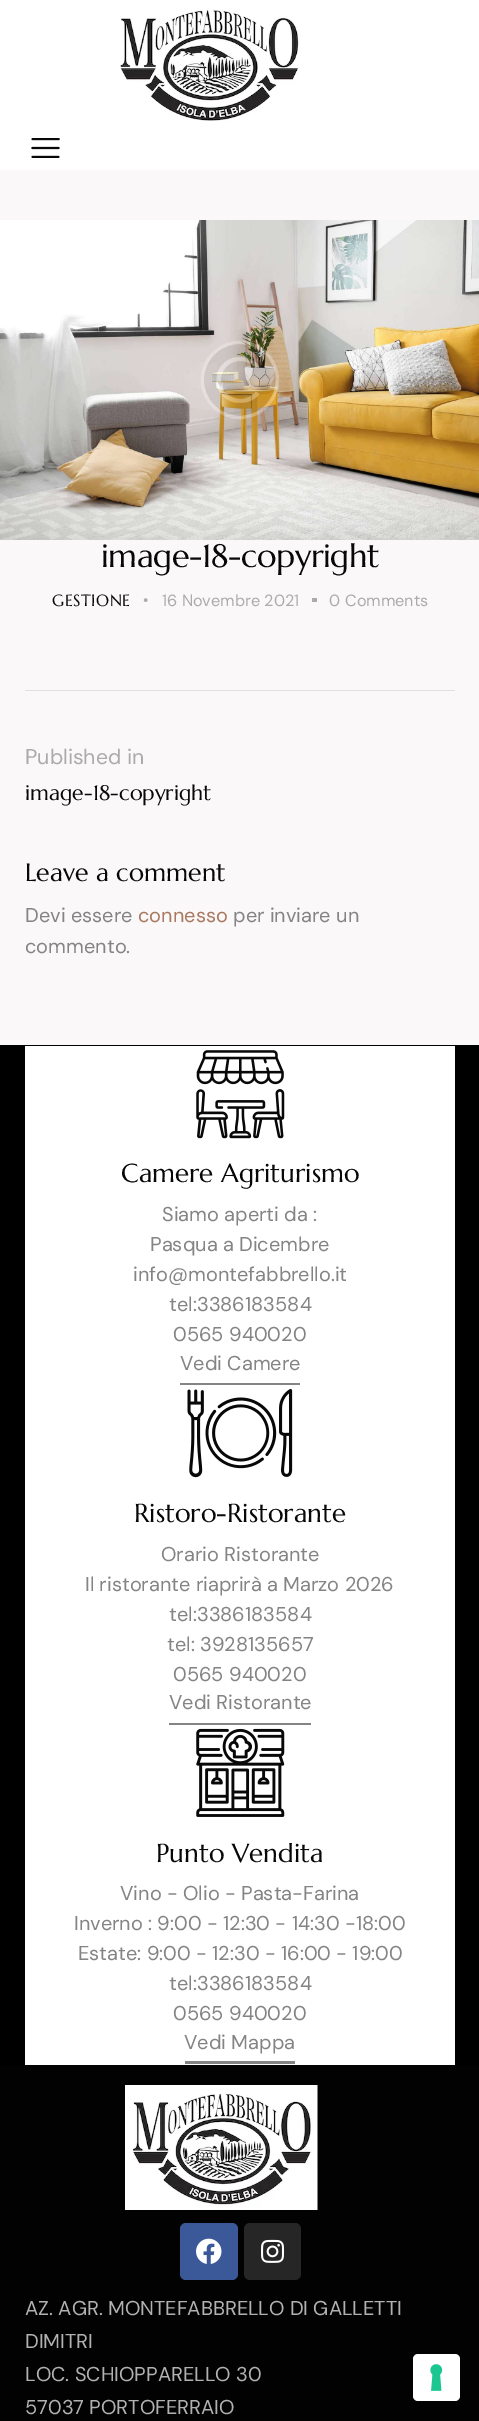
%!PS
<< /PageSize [479 2421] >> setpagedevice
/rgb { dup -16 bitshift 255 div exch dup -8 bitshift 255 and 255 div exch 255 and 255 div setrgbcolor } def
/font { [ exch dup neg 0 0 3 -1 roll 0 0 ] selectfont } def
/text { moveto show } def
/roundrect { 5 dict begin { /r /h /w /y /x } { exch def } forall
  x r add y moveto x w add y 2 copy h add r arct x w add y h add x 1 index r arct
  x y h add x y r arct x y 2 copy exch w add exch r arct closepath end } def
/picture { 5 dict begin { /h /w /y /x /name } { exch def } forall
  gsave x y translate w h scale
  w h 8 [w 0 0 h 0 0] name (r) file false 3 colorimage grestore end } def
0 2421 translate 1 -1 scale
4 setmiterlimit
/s1 { /DMSans-Regular 16.25 font 16#ACABAB rgb } def
/s2 { /DMSans-Regular 21.25 font 16#ACABAB rgb } def
/s3 { /Marcellus-Regular 21.25 font 16#080808 rgb } def
/s4 { /Marcellus-Regular 25 font 16#080808 rgb } def
/s5 { /DMSans-Regular 20 font 16#848484 rgb } def
/s6 { /DMSans-Regular 20 font 16#A87860 rgb } def
/s7 { /Marcellus-Regular 26 font 16#080808 rgb } def
/s8 { /DMSans-Regular 20 font 16#B2B1B1 rgb } def
16#FAF8F8 rgb
0 0 479 2421 rectfill
16#FFFFFF rgb
0 0 479 170 rectfill
(pic1.raw) 120 10 180 111 picture
(pic2.raw) 31 138 29 20 picture
(pic3.raw) 0 220 479 320 picture
/Marcellus-Regular 32.5 font
16#080808 rgb
101 567 moveto -0.4 0 (image-18-copyright) ashow
/Marcellus-Regular 16.25 font
52 606 moveto 0.5 0 (GESTIONE) ashow
(pic4.raw) 143 598 5 4 picture
s1
(16 Novembre 2021) 162 606 text
312 598 5 4 rectfill
(0) 329 606 text
(Comments) 345 606 text
16#E0E0E0 rgb
25 690 430 1 rectfill
s2
(Published in) 25 764 text
s3
(image-18-copyright) 25 800 text
s4
(Leave a comment) 25 881 text
s5
(Devi essere) 25 922 text
s6
(connesso) 138 922 text
s5
(per inviare un) 233 922 text
(commento.) 25 953 text
16#020202 rgb
0 1045 479 1 rectfill
16#000000 rgb
0 1046 479 1019 rectfill
16#FFFFFF rgb
25 1046 430 1019 rectfill
(pic5.raw) 196 1050 89 89 picture
s7
(Camere Agriturismo) 121 1182 text
s5
(Siamo aperti da :) 162 1221 text
(Pasqua a Dicembre) 150 1251 text
(info@montefabbrello.it) 133 1281 text
(tel:3386183584) 169 1311 text
(0565 940020) 173 1341 text
(Vedi Camere) 180 1370 text
180 1383 120 2 rectfill
(pic6.raw) 187 1388 106 90 picture
s7
(Ristoro-Ristorante) 134 1522 text
s5
(Orario Ristorante) 161 1561 text
(Il ristorante riaprirà a Marzo 2026) 85 1591 text
(tel:3386183584) 169 1621 text
(tel: 3928135657) 167 1651 text
(0565 940020) 173 1681 text
(Vedi Ristorante) 169 1709 text
169 1723 142 2 rectfill
(pic7.raw) 196 1728 89 89 picture
s7
(Punto Vendita) 156 1862 text
s5
(Vino - Olio - Pasta-Farina) 120 1900 text
(Inverno : 9:00 - 12:30 - 14:30 -18:00) 74 1930 text
(Estate: 9:00 - 12:30 - 16:00 - 19:00) 78 1960 text
(tel:3386183584) 169 1990 text
(0565 940020) 173 2020 text
(Vedi Mappa) 184 2049 text
185 2061 110 3 rectfill
16#020202 rgb
0 2065 479 356 rectfill
(pic8.raw) 125 2085 193 125 picture
16#3B5998 rgb
180 2223 58 57 6 roundrect fill
(pic9.raw) 196 2238 26 26 picture
16#262626 rgb
244 2223 57 57 6 roundrect fill
(pic10.raw) 261 2239 24 24 picture
s8
(AZ. AGR. MONTEFABBRELLO DI GALLETTI) 25 2315 text
(DIMITRI) 25 2348 text
(LOC. SCHIOPPARELLO 30) 25 2381 text
(57037 PORTOFERRAIO) 25 2414 text
16#FFFFFF rgb
413 2354 47 47 5 roundrect fill
(pic11.raw) 430 2364 13 27 picture
showpage
